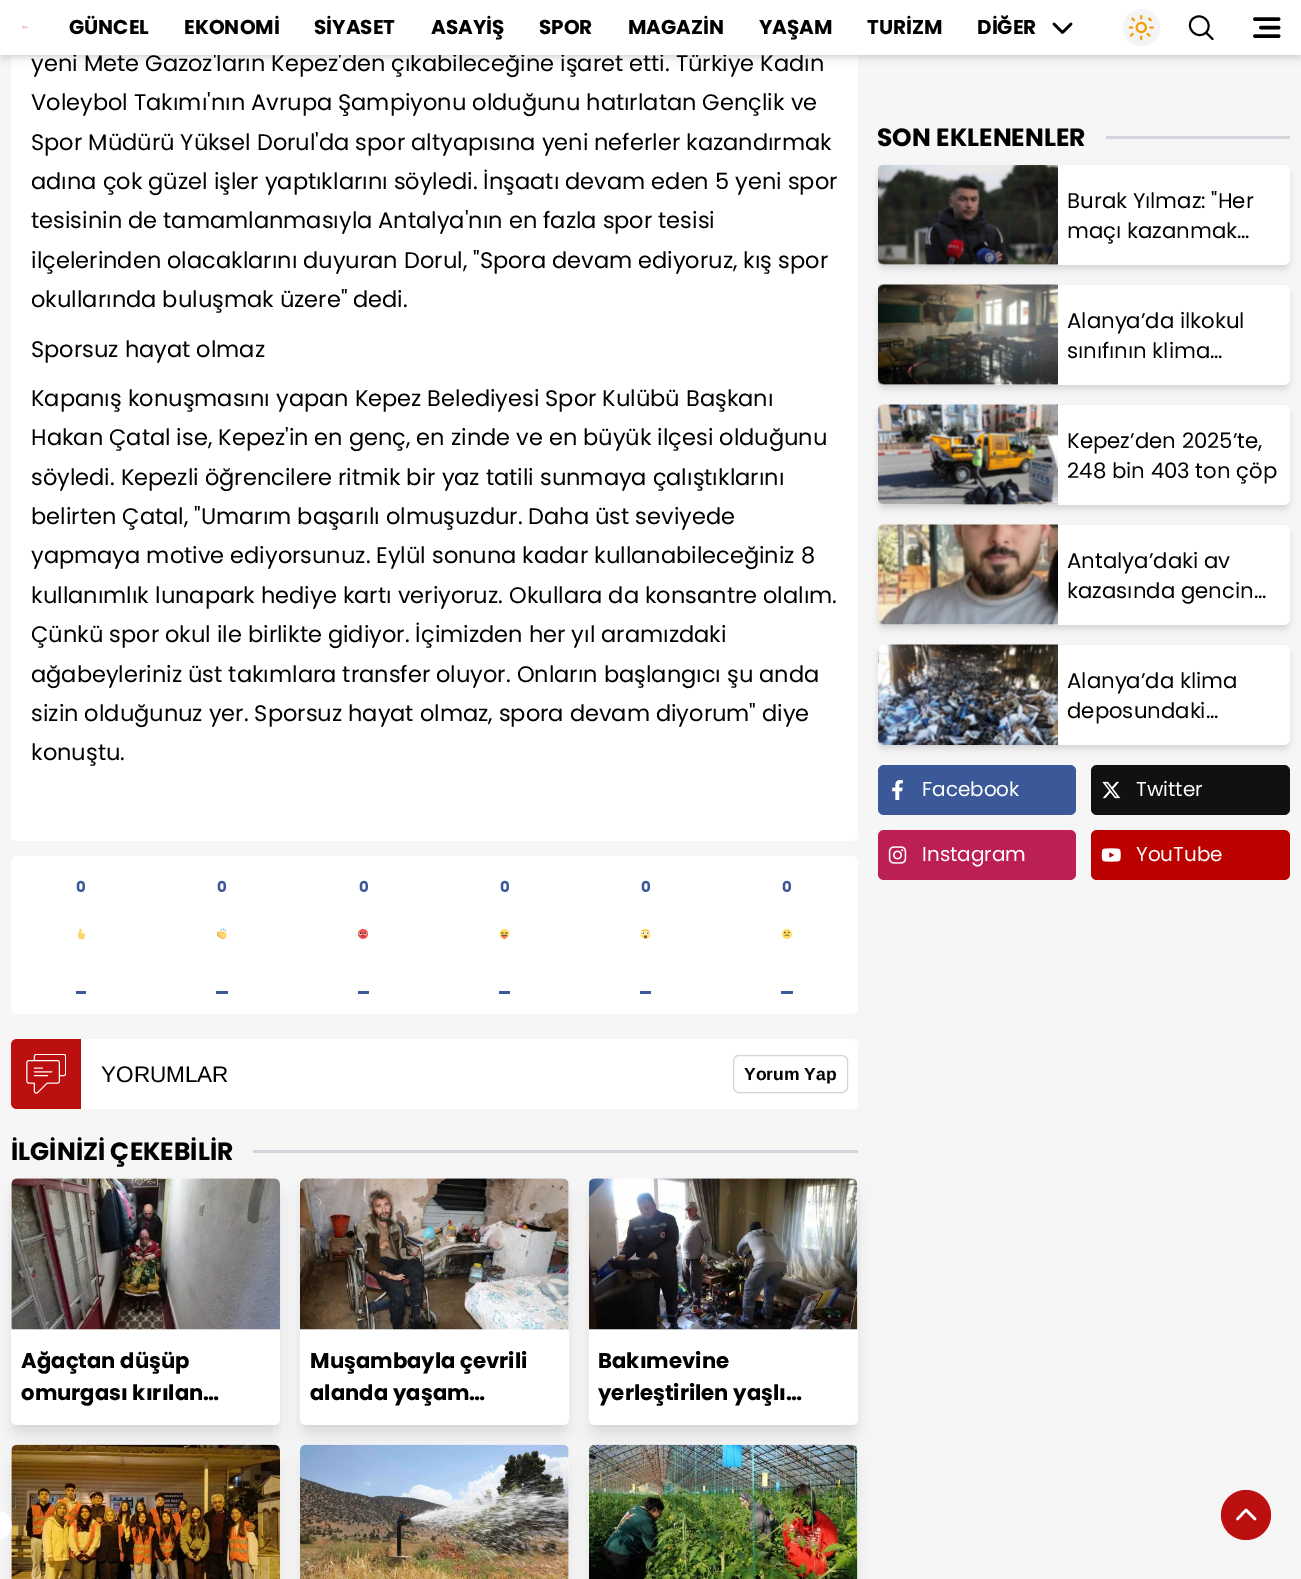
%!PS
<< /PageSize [1301 1579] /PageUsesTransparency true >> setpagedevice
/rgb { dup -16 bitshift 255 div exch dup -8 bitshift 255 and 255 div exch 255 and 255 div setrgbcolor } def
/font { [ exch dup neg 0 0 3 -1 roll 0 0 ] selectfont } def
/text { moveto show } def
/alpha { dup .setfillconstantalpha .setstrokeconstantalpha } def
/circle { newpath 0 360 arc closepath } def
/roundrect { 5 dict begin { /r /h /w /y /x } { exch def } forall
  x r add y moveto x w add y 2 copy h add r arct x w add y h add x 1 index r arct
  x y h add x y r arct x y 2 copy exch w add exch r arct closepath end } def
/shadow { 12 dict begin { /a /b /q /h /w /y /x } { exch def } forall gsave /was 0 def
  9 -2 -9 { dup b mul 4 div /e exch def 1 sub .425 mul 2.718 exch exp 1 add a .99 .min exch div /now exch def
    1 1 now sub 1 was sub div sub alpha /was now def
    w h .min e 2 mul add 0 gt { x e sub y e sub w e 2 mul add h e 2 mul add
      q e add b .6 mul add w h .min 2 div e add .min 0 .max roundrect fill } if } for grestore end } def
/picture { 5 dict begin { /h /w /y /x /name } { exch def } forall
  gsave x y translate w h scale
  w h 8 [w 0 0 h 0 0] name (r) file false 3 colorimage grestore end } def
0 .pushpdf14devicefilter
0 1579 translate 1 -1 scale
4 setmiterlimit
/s1 { /Poppins-Regular 22.5 font 16#000000 rgb } def
/s2 { /Poppins-Bold 20 font 16#000000 rgb } def
/s3 { /Poppins-Bold 15 font 16#3B5998 rgb } def
/s4 { /LiberationSans-Regular 22.5 font 16#000000 rgb } def
/s5 { /LiberationSans-Bold 17.5 font 16#000000 rgb } def
/s6 { /Poppins-Bold 25 font 16#000000 rgb } def
/s7 { /Poppins-Bold 21.25 font 16#000000 rgb } def
/s8 { /Poppins-Regular 21.25 font 16#000000 rgb } def
/s9 { /Poppins-Regular 20 font 16#FFFFFF rgb } def
16#F7F6F6 rgb
0 0 1301 1579 rectfill
16#FFFFFF rgb
11 -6 847 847 6 roundrect fill
16#000000 rgb
3 5 1296 50 0 2.5 0.1 shadow
1 6 1299 53 0 4 0.1 shadow
s1
(yeni Mete Gazoz'ların Kepez'den çıkabileceğine işaret etti. Türkiye Kadın) 31 71 text
16#FFFFFF rgb
0 0 1301 55 rectfill
(pic1.raw) 22 25 6 4 picture
s2
(GÜNCEL) 69 34 text
(EKONOMİ) 184 34 text
(SİYASET) 314 34 text
(ASAYİŞ) 431 34 text
(SPOR) 539 34 text
(MAGAZİN) 628 34 text
(YAŞAM) 759 34 text
(TURİZM) 867 34 text
(DİĞER) 977 34 text
2.5 setlinewidth
1 setlinecap
1 setlinejoin
1071 24 moveto 1062.5 32.5 lineto 1054 24 lineto stroke
16#F3F4F6 rgb
1141.5 27.5 18.5 circle fill
(pic2.raw) 1128 14 26 27 picture
16#000000 rgb
1.9 setlinewidth
1212.5 39 moveto 1206 32.5 lineto 1206 32.5 moveto 1214.5 23.5 1201.5 10.5 1192.5 19 curveto 1184 27.5 1197.5 41 1206 32.5 curveto closepath stroke
3.6 setlinewidth
1278.5 19 moveto 1255 19 lineto 1278.5 27.5 moveto 1261 27.5 lineto 1278.5 36 moveto 1255 36 lineto stroke
s1
(Voleybol Takımı'nın Avrupa Şampiyonu olduğunu hatırlatan Gençlik ve) 31 110 text
(Spor Müdürü Yüksel Dorul'da spor altyapısına yeni neferler kazandırmak) 31 150 text
(adına çok güzel işler yaptıklarını söyledi. İnşaatı devam eden 5 yeni spor) 31 189 text
(tesisinin de tamamlanmasıyla Antalya'nın en fazla spor tesisi) 31 228 text
(ilçelerinden olacaklarını duyuran Dorul, "Spora devam ediyoruz, kış spor) 31 268 text
(okullarında buluşmak üzere" dedi.) 31 307 text
(Sporsuz hayat olmaz) 31 357 text
(Kapanış konuşmasını yapan Kepez Belediyesi Spor Kulübü Başkanı) 31 406 text
(Hakan Çatal ise, Kepez'in en genç, en zinde ve en büyük ilçesi olduğunu) 31 445 text
(söyledi. Kepezli öğrencilere ritmik bir yaz tatili sunmaya çalıştıklarını) 31 485 text
(belirten Çatal, "Umarım başarılı olmuşuzdur. Daha üst seviyede) 31 524 text
(yapmaya motive ediyorsunuz. Eylül sonuna kadar kullanabileceğiniz 8) 31 563 text
(kullanımlık lunapark hediye kartı veriyoruz. Okullara da konsantre olalım.) 31 603 text
(Çünkü spor okul ile birlikte gidiyor. İçimizden her yıl aramızdaki) 31 642 text
(ağabeyleriniz üst takımlara transfer oluyor. Onların başlangıcı şu anda) 31 682 text
(sizin olduğunuz yer. Sporsuz hayat olmaz, spora devam diyorum" diye) 31 721 text
(konuştu.) 31 760 text
16#FFFFFF rgb
11 856 847 158 6 roundrect fill
s3
(0) 76 892 text
(pic3.raw) 78 928 8 11 picture
76 991 10 3 rectfill
(0) 217 892 text
(pic4.raw) 217 928 10 11 picture
216 991 12 3 rectfill
(0) 359 892 text
(pic5.raw) 358 929 10 10 picture
358 991 11 3 rectfill
(0) 500 892 text
(pic6.raw) 499 929 11 10 picture
499 991 11 3 rectfill
(0) 641 892 text
(pic7.raw) 640 929 11 10 picture
640 991 11 3 rectfill
(0) 782 892 text
(pic8.raw) 782 929 10 10 picture
781 991 12 3 rectfill
16#FFFFFF rgb
11 1039 847 70 6 roundrect fill
16#BC0F0F rgb
17 1039 moveto 81 1039 lineto 81 1109 lineto 17 1109 lineto 13.5 1109 11 1106.5 11 1103 curveto 11 1045 lineto 11 1041.5 13.5 1039 17 1039 curveto closepath fill
(pic9.raw) 26 1054 40 40 picture
s4
(YORUMLAR) 101 1082 text
16#D1D5DB rgb
1 setlinewidth
0 setlinecap
0 setlinejoin
733.5 1055.5 114 37 5.5 roundrect stroke
s5
(Yorum Yap) 744 1080 text
s6
(İLGİNİZİ ÇEKEBİLİR) 11 1160 text
16#D1D5DB rgb
253 1150 605 3 rectfill
16#000000 rgb
16 1189 259 236 1 4 0.1 shadow
15 1195 261 239 2.5 9.5 0.1 shadow
(pic10.raw) 11 1178 269 152 picture
16#FFFFFF rgb
11 1330 moveto 280 1330 lineto 280 1419 lineto 280 1422.5 277.5 1425 274 1425 curveto 17 1425 lineto 13.5 1425 11 1422.5 11 1419 curveto closepath fill
s7
(Ağaçtan düşüp) 21 1368 text
(omurgası kırılan…) 21 1400 text
305 1189 259 236 1 4 0.1 shadow
304 1195 261 239 2.5 9.5 0.1 shadow
(pic11.raw) 300 1178 269 152 picture
16#FFFFFF rgb
300 1330 moveto 569 1330 lineto 569 1419 lineto 569 1422.5 566.5 1425 563 1425 curveto 306 1425 lineto 302.5 1425 300 1422.5 300 1419 curveto closepath fill
s7
(Muşambayla çevrili) 310 1368 text
(alanda yaşam…) 310 1400 text
594 1189 259 236 1 4 0.1 shadow
593 1195 261 239 2.5 9.5 0.1 shadow
(pic12.raw) 589 1178 269 152 picture
16#FFFFFF rgb
589 1330 moveto 858 1330 lineto 858 1419 lineto 858 1422.5 855.5 1425 852 1425 curveto 595 1425 lineto 591.5 1425 589 1422.5 589 1419 curveto closepath fill
s7
(Bakımevine) 598 1368 text
(yerleştirilen yaşlı…) 598 1400 text
15 1461 261 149 2.5 9.5 0.1 shadow
(pic13.raw) 11 1444 269 135 picture
304 1461 261 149 2.5 9.5 0.1 shadow
(pic14.raw) 300 1444 269 135 picture
593 1461 261 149 2.5 9.5 0.1 shadow
(pic15.raw) 589 1444 269 135 picture
s6
(SON EKLENENLER) 877 146 text
16#D1D5DB rgb
1106 136 184 3 rectfill
16#000000 rgb
880 170 408 95 4 2.5 0.1 shadow
879 171 410 98 5 4 0.1 shadow
16#FFFFFF rgb
878 165 412 100 6 roundrect fill
(pic16.raw) 878 165 180 100 picture
s8
(Burak Yılmaz: "Her) 1067 208 text
(maçı kazanmak…) 1067 238 text
880 290 408 95 4 2.5 0.1 shadow
879 291 410 98 5 4 0.1 shadow
16#FFFFFF rgb
878 285 412 100 6 roundrect fill
(pic17.raw) 878 284 180 101 picture
s8
(Alanya’da ilkokul) 1067 328 text
(sınıfının klima…) 1067 358 text
880 410 408 95 4 2.5 0.1 shadow
879 411 410 98 5 4 0.1 shadow
16#FFFFFF rgb
878 405 412 100 6 roundrect fill
(pic18.raw) 878 404 180 101 picture
s8
(Kepez’den 2025’te,) 1067 448 text
(248 bin 403 ton çöp) 1067 478 text
880 530 408 95 4 2.5 0.1 shadow
879 531 410 98 5 4 0.1 shadow
16#FFFFFF rgb
878 525 412 100 6 roundrect fill
(pic19.raw) 878 524 180 101 picture
s8
(Antalya’daki av) 1067 568 text
(kazasında gencin…) 1067 598 text
880 650 408 95 4 2.5 0.1 shadow
879 651 410 98 5 4 0.1 shadow
16#FFFFFF rgb
878 645 412 100 6 roundrect fill
(pic20.raw) 878 644 180 101 picture
s8
(Alanya’da klima) 1067 688 text
(deposundaki…) 1067 718 text
16#3B5998 rgb
878 765 198 50 6 roundrect fill
(pic21.raw) 892 780 11 20 picture
s9
(Facebook) 922 796 text
16#111111 rgb
1091 765 199 50 6 roundrect fill
(pic22.raw) 1102 781 19 18 picture
s9
(Twitter) 1136 796 text
16#BB1F54 rgb
878 830 198 50 6 roundrect fill
(pic23.raw) 888 846 19 18 picture
s9
(Instagram) 922 861 text
16#BB0000 rgb
1091 830 199 50 6 roundrect fill
(pic24.raw) 1101 848 20 14 picture
s9
(YouTube) 1136 861 text
-0.5 1511 moveto 6 1511 11.5 1517.5 11.5 1525 curveto 11.5 1532.5 6 1539 -0.5 1539 curveto -7 1539 -12.5 1532.5 -12.5 1525 curveto -12.5 1517.5 -7 1511 -0.5 1511 curveto closepath fill
16#BC0F0F rgb
1246 1515 25 circle fill
16#FFFFFF rgb
2.5 setlinewidth
1 setlinecap
1 setlinejoin
1237.5 1519 moveto 1246 1510 lineto 1255 1519 lineto stroke
.poppdf14devicefilter showpage
